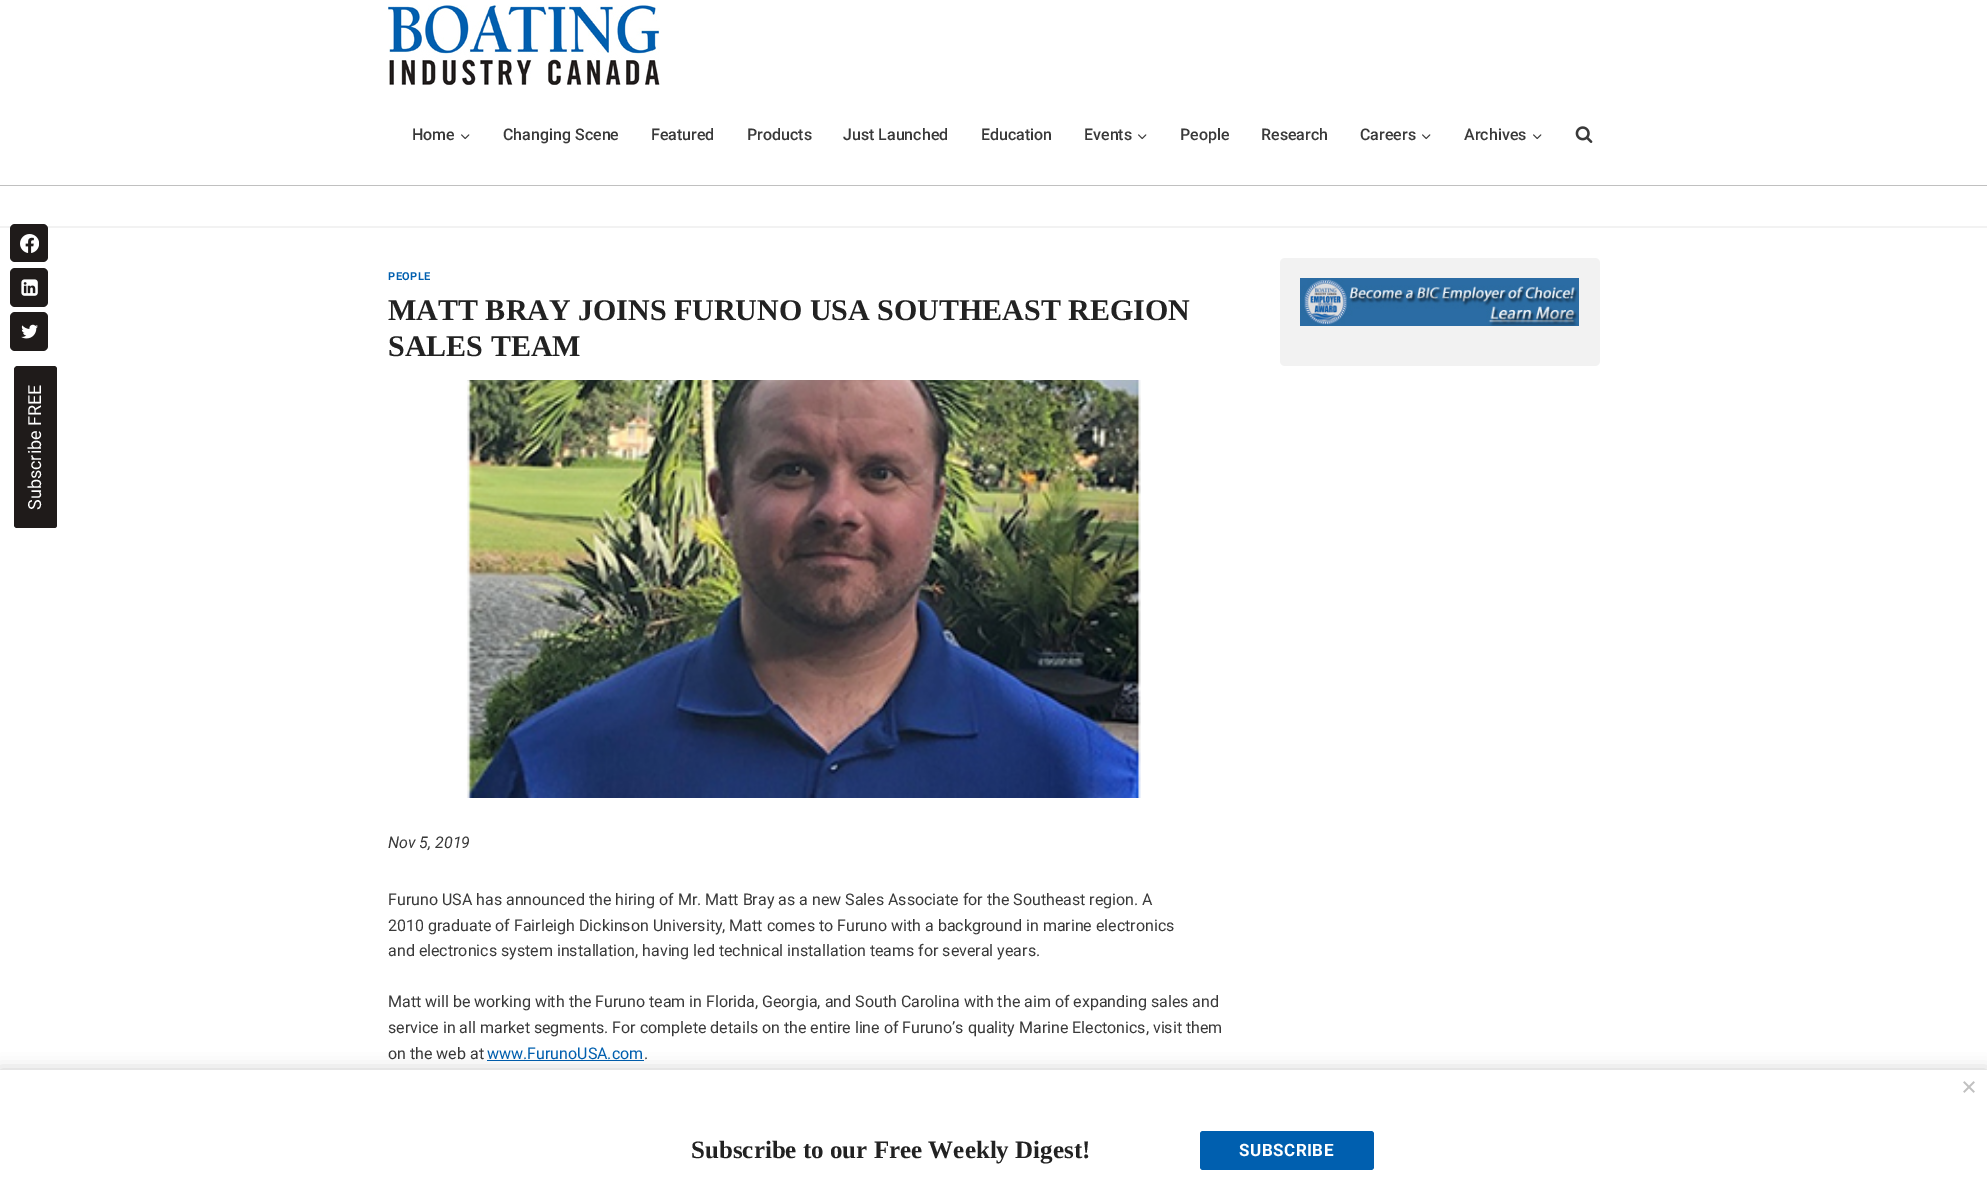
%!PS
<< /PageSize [1987 1190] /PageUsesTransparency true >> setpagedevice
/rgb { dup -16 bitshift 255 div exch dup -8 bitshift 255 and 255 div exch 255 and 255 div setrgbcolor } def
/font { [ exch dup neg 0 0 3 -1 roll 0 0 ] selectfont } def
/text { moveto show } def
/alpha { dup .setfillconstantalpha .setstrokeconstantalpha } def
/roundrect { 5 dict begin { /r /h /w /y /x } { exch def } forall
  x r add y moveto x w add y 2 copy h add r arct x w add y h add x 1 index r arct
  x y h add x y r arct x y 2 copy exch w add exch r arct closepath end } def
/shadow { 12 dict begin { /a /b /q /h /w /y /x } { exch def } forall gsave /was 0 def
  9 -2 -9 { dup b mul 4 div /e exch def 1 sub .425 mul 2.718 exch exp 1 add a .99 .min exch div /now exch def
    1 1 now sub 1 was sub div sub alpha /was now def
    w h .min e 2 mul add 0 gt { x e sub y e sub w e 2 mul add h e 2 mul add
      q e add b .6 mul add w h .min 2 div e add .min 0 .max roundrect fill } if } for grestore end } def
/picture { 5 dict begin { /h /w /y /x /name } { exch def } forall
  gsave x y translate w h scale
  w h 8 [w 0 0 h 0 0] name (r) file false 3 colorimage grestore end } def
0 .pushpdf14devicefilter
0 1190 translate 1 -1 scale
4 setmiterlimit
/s1 { /Roboto-Medium 16 font 16#393939 rgb } def
/s2 { /LiberationSerif-Bold 30 font 16#222222 rgb } def
/s3 { /Roboto-Italic 16 font 16#393939 rgb } def
/s4 { /Roboto-Regular 16 font 16#393939 rgb } def
/s5 { /Roboto-Regular 16 font 16#005FAF rgb } def
/s6 { /LiberationSerif-Bold 25 font 16#222222 rgb } def
16#FFFFFF rgb
0 0 1987 1190 rectfill
(pic1.raw) 388 5 272 80 picture
16#C0C0C0 rgb
0 185 1987 1 rectfill
s1
(Home) 412 140 text
(pic2.raw) 461 134 9 6 picture
(Changing Scene) 503 140 text
(Featured) 651 140 text
(Products) 747 140 text
(Just Launched) 843 140 text
(Education) 981 140 text
(Events) 1084 140 text
(pic2.raw) 1138 134 9 6 picture
(People) 1180 140 text
(Research) 1261 140 text
(Careers) 1360 140 text
(pic2.raw) 1422 134 9 6 picture
(Archives) 1464 140 text
(pic2.raw) 1533 134 9 6 picture
(pic3.raw) 1575 126 18 17 picture
16#F2F2F2 rgb
0 226 1987 2 rectfill
16#1F1B1A rgb
10 224 38 38 5 roundrect fill
(pic4.raw) 20 234 19 19 picture
10 268 38 39 5 roundrect fill
(pic5.raw) 21 279 17 17 picture
10 312 38 39 5 roundrect fill
(pic6.raw) 21 324 17 15 picture
14 525 moveto 14 369 lineto 14 368 16 366 17 366 curveto 54 366 lineto 56 366 57 368 57 369 curveto 57 525 lineto 57 527 56 528 54 528 curveto 17 528 lineto 16 528 14 527 14 525 curveto closepath fill
/Roboto-Regular 18 font
16#FFFFFF rgb
gsave 41 510 translate -90 rotate 0 0 moveto (Subscribe FREE) show grestore
/Roboto-Bold 11 font
16#005FAF rgb
388 280 moveto 0.5 0 (PEOPLE) ashow
s2
(MATT BRAY JOINS FURUNO USA SOUTHEAST REGION) 388 320 text
(SALES TEAM) 388 356 text
(pic7.raw) 466 380 675 418 picture
s3
(Nov 5, 2019) 388 848 text
s4
(Furuno USA has announced the hiring of Mr. Matt Bray as a new Sales Associate for the Southeast region. A) 388 905 text
(2010 graduate of Fairleigh Dickinson University, Matt comes to Furuno with a background in marine electronics) 388 931 text
(and electronics system installation, having led technical installation teams for several years.) 388 956 text
(Matt will be working with the Furuno team in Florida, Georgia, and South Carolina with the aim of expanding sales and) 388 1007 text
(service in all market segments. For complete details on the entire line of Furuno’s quality Marine Electonics, visit them) 388 1033 text
(on the web at) 388 1059 text
s5
(www.FurunoUSA.com) 487 1059 text
487 1060 157 1 rectfill
s4
(.) 644 1059 text
16#F2F2F2 rgb
1280 258 320 108 5 roundrect fill
(pic8.raw) 1300 278 279 48 picture
16#000000 rgb
0 1070 1987 120 0 8 0.2 shadow
16#FFFFFF rgb
0 1070 1987 120 rectfill
(pic9.raw) 1963 1081 12 12 picture
s6
(Subscribe to our Free Weekly Digest!) 691 1158 text
16#005FAF rgb
1200 1131 174 39 3 roundrect fill
/Roboto-Bold 17 font
16#FFFFFF rgb
1239 1156 moveto 0.5 0 (SUBSCRIBE) ashow
.poppdf14devicefilter showpage
